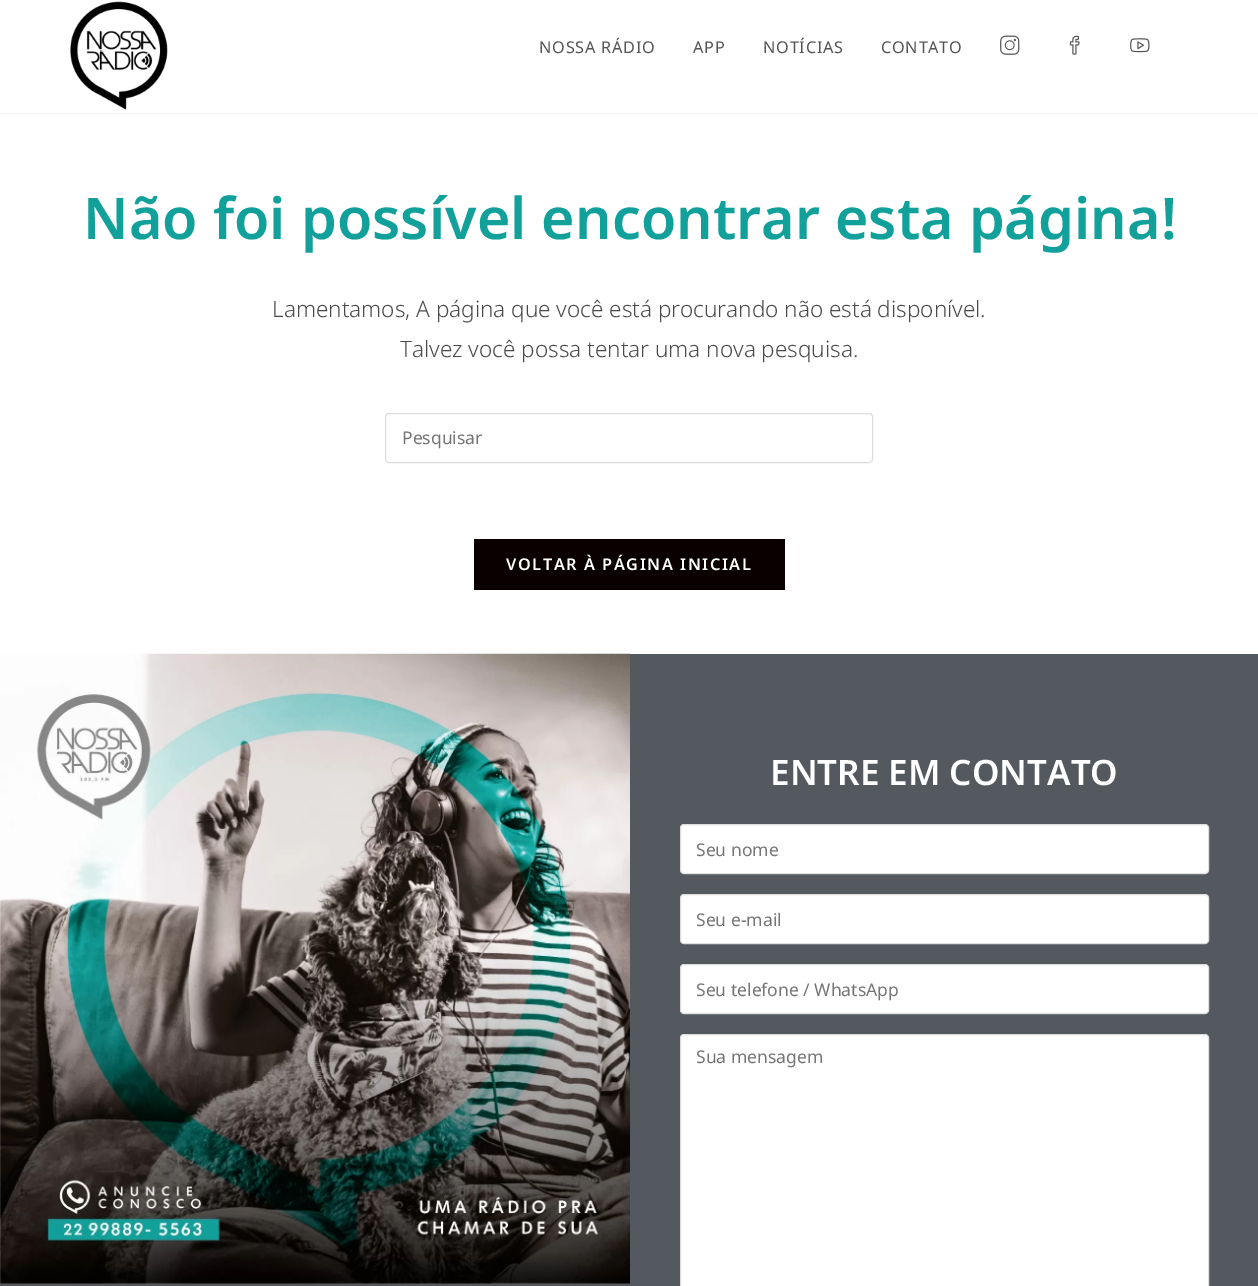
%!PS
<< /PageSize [1258 1286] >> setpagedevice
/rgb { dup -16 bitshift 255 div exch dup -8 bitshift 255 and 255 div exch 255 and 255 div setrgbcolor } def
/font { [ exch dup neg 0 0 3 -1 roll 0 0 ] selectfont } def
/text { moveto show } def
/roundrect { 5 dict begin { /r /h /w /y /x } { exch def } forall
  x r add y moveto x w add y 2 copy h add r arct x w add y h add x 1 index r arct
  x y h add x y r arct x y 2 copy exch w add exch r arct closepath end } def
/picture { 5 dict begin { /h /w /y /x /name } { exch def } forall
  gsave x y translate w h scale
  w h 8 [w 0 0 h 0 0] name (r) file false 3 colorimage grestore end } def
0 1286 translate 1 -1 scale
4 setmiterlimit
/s1 { /NotoSans-SemiBold 57.5 font 16#11A09A rgb } def
/s2 { /NotoSans-Light 22.5 font 16#4A4A4A rgb } def
/s3 { /NotoSans-Regular 17.5 font 16#757575 rgb } def
/s4 { /NotoSans-SemiBold 35 font 16#FFFFFF rgb } def
16#FFFFFF rgb
0 0 1258 1286 rectfill
16#F1F1F1 rgb
0 113 1258 1 rectfill
(pic1.raw) 70 1 98 109 picture
/NotoSans-Regular 16.25 font
16#555555 rgb
539 53 moveto 0.75 0 (NOSSA RÁDIO) ashow
693 53 moveto 0.75 0 (APP) ashow
763 53 moveto 0.75 0 (NOTÍCIAS) ashow
881 53 moveto 0.75 0 (CONTATO) ashow
(pic2.raw) 1000 35 20 20 picture
(pic3.raw) 1069 35 11 20 picture
(pic4.raw) 1130 38 20 15 picture
s1
(Não foi possível encontrar esta página!) 83 239 text
s2
(Lamentamos, A página que você está procurando não está disponível.) 272 317 text
(Talvez você possa tentar uma nova pesquisa.) 400 357 text
16#DDDDDD rgb
385.5 413.5 487 49 3.5 roundrect stroke
s3
(Pesquisar) 402 444 text
16#0A0000 rgb
474 539 311 51 rectfill
/NotoSans-SemiBold 16.25 font
16#FFFFFF rgb
506 570 moveto 1.6 0 (VOLTAR À PÁGINA INICIAL) ashow
16#54595F rgb
0 654 1258 632 rectfill
(pic5.raw) 0 653 630 631 picture
s4
(ENTRE EM CONTATO) 770 785 text
680.5 824.5 528 49 3.5 roundrect gsave fill grestore
16#DDDDDD rgb
stroke
s3
(Seu nome) 696 856 text
16#FFFFFF rgb
680.5 894.5 528 49 3.5 roundrect gsave fill grestore
16#DDDDDD rgb
stroke
s3
(Seu e-mail) 696 926 text
16#FFFFFF rgb
680.5 964.5 528 49 3.5 roundrect gsave fill grestore
16#DDDDDD rgb
stroke
s3
(Seu telefone / WhatsApp) 696 996 text
16#FFFFFF rgb
680.5 1034.5 528 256 3.5 roundrect gsave fill grestore
16#DDDDDD rgb
stroke
s3
(Sua mensagem) 696 1063 text
showpage
